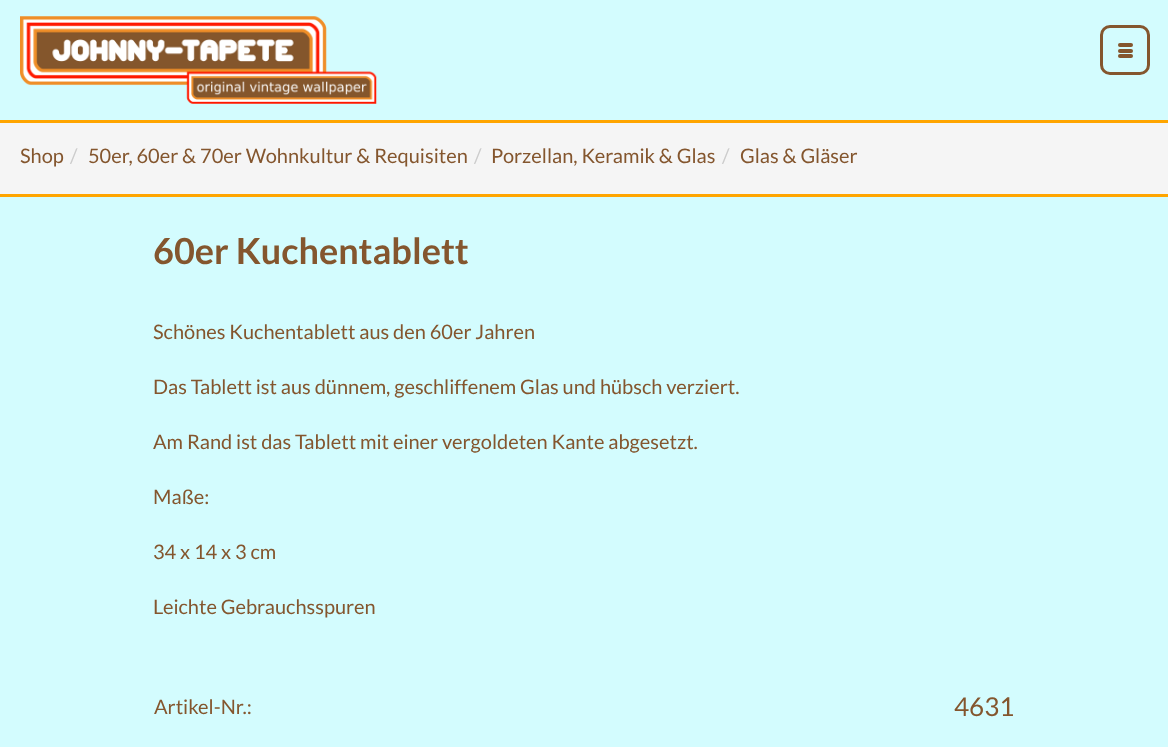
<svg xmlns="http://www.w3.org/2000/svg" xmlns:xlink="http://www.w3.org/1999/xlink" width="1168" height="747" viewBox="0 0 1168 747">
<style>
.cls-1{font:20px Lato;fill:#84562e}
.cls-2{font:20px Lato;fill:#cccccc}
.cls-3{font:bold 36px Lato;fill:#84562e}
.cls-4{font:26px Lato;fill:#84562e}
</style>
<rect width="100%" height="100%" fill="#d3fcfe"/>
<image xlink:href="image0.png" x="20" y="16" width="357" height="88"/>
<rect fill="none" stroke="#84562e" stroke-width="3" x="1101.5" y="26.5" width="47" height="47" rx="8.5"/>
<rect fill="#84562e" x="1118" y="43" width="15" height="4" rx="2"/>
<rect fill="#84562e" x="1118" y="49" width="15" height="4" rx="2"/>
<rect fill="#84562e" x="1118" y="54" width="15" height="4" rx="2"/>
<rect fill="#f5f5f5" x="0" y="123" width="1168" height="71"/>
<rect fill="#ffa500" x="0" y="120" width="1168" height="3"/>
<rect fill="#ffa500" x="0" y="194" width="1168" height="3"/>
<text class="cls-1" x="20" y="163">Shop</text>
<text class="cls-2" x="70" y="163">/</text>
<text class="cls-1" x="88" y="163">50er, 60er &amp; 70er Wohnkultur &amp; Requisiten</text>
<text class="cls-2" x="474" y="163">/</text>
<text class="cls-1" x="491" y="163">Porzellan, Keramik &amp; Glas</text>
<text class="cls-2" x="722" y="163">/</text>
<text class="cls-1" x="740" y="163">Glas &amp; Gläser</text>
<text class="cls-3" x="153" y="264">60er Kuchentablett</text>
<text class="cls-1" x="153" y="339">Schönes Kuchentablett aus den 60er Jahren</text>
<text class="cls-1" x="153" y="394">Das Tablett ist aus dünnem, geschliffenem Glas und hübsch verziert.</text>
<text class="cls-1" x="153" y="449">Am Rand ist das Tablett mit einer vergoldeten Kante abgesetzt.</text>
<text class="cls-1" x="153" y="504">Maße:</text>
<text class="cls-1" x="153" y="559">34 x 14 x 3 cm</text>
<text class="cls-1" x="153" y="614">Leichte Gebrauchsspuren</text>
<text class="cls-1" x="154" y="714">Artikel-Nr.:</text>
<text class="cls-4" x="954" y="716">4631</text>
</svg>
